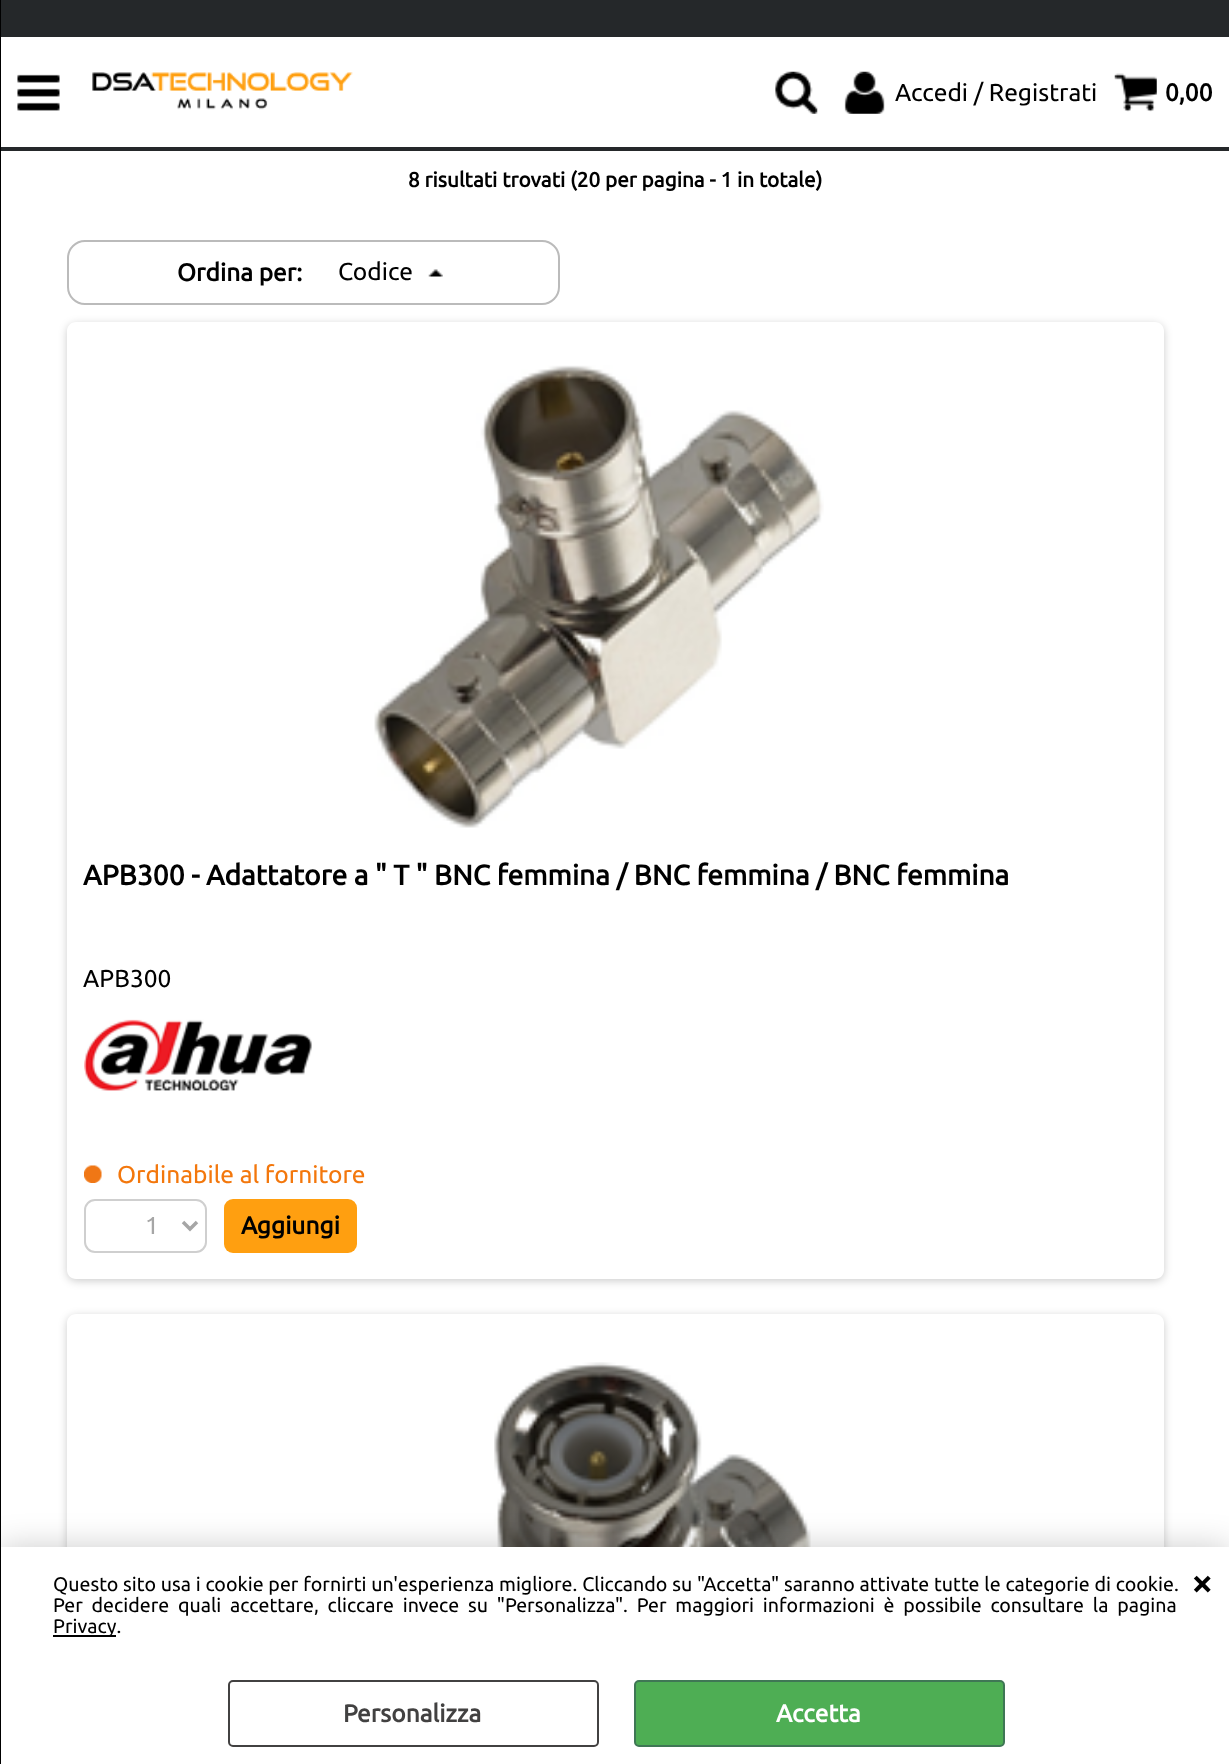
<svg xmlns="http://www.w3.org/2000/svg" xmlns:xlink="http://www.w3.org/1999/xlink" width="1229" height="1764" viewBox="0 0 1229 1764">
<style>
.cls-1{font:24.5px Ubuntu;fill:#000000}
.cls-2{font:bold 24.5px Ubuntu;fill:#000000}
.cls-3{font:bold 20.75px Ubuntu;fill:#000000}
.cls-4{font:bold 28.2px Ubuntu;fill:#000000}
.cls-5{font:24.5px Ubuntu;fill:#f3770c}
.cls-6{font:24.5px Ubuntu;fill:#a6a6a6}
.cls-7{font:19.6px Ubuntu;fill:#000000}
.cls-8{font:bold 38px Ubuntu;fill:#000000}
.cls-9{font:bold 24.5px Ubuntu;fill:#424141}
.cls-10{font:bold 24.5px Ubuntu;fill:#ffffff}
</style>
<defs>
<clipPath id="clip1"><path d="M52 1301H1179V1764H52ZM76 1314H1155C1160 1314 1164 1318 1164 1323V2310C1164 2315 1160 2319 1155 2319H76C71 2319 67 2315 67 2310V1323C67 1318 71 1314 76 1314Z" clip-rule="evenodd"/></clipPath>
<clipPath id="clip2"><path d="M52 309H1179V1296H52ZM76 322H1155C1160 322 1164 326 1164 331V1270C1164 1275 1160 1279 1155 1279H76C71 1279 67 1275 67 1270V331C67 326 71 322 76 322Z" clip-rule="evenodd"/></clipPath>
</defs>
<rect width="100%" height="100%" fill="#ffffff"/>
<rect fill="#25282a" x="0" y="147" width="1229" height="4"/>
<g clip-path="url(#clip1)">
<rect fill="#000000" fill-opacity="0.2" filter="blur(4.5px)" x="67" y="1316" width="1097" height="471" rx="9"/>
</g>
<image xlink:href="image9.png" x="388" y="1362" width="423" height="185"/>
<rect fill="#000000" fill-opacity="0.2" filter="blur(16px)" x="0" y="1547" width="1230" height="217"/>
<rect fill="#000000" x="0" y="0" width="1" height="1764"/>
<rect fill="#25282a" x="1" y="0" width="1228" height="37"/>
<image xlink:href="image0.png" x="17" y="74" width="43" height="37"/>
<image xlink:href="image1.png" x="92" y="72" width="261" height="38"/>
<image xlink:href="image2.png" x="775" y="71" width="43" height="43"/>
<image xlink:href="image3.png" x="844" y="71" width="41" height="43"/>
<image xlink:href="image4.png" x="1114" y="73" width="43" height="39"/>
<rect fill="none" stroke="#bbbbbb" stroke-width="2" x="68" y="241" width="491" height="63" rx="17"/>
<image xlink:href="image5.png" x="428" y="269" width="15" height="8"/>
<g clip-path="url(#clip2)">
<rect fill="#000000" fill-opacity="0.2" filter="blur(4.5px)" x="67" y="324" width="1097" height="957" rx="9"/>
</g>
<image xlink:href="image6.png" x="374" y="365" width="450" height="463"/>
<image xlink:href="image7.png" x="84" y="1019" width="228" height="72"/>
<image xlink:href="image8.png" x="84" y="1165" width="18" height="18"/>
<rect fill="none" stroke="#cfcfcf" stroke-width="2" x="85" y="1200" width="121" height="52" rx="10"/>
<path fill="none" stroke="#a6a6a6" stroke-width="3.5" d="M183 1222L190 1229L197 1222"/>
<rect fill="#ff9f10" x="224" y="1199" width="133" height="54" rx="9"/>
<rect fill="#ffffff" x="1" y="1547" width="1228" height="217"/>
<rect fill="#000000" x="53" y="1635" width="63" height="2"/>
<rect fill="none" stroke="#424141" stroke-width="2" x="229" y="1681" width="369" height="65" rx="4"/>
<rect fill="#4eae54" stroke="#3f7755" stroke-width="2" x="635" y="1681" width="369" height="65" rx="4"/>
<text class="cls-1" x="895" y="101">Accedi / Registrati</text>
<text class="cls-2" x="1165" y="101">0,00</text>
<text class="cls-3" x="408" y="187">8 risultati trovati (20 per pagina - 1 in totale)</text>
<text class="cls-2" x="177" y="281">Ordina per:</text>
<text class="cls-1" x="338" y="280">Codice</text>
<text class="cls-4" x="83" y="885">APB300 - Adattatore a " T " BNC femmina / BNC femmina / BNC femmina</text>
<text class="cls-1" x="83" y="987">APB300</text>
<text class="cls-5" x="117" y="1183">Ordinabile al fornitore</text>
<text class="cls-6" x="145" y="1234">1</text>
<text class="cls-2" x="241" y="1234">Aggiungi</text>
<text class="cls-7"><tspan x="53" y="1591" word-spacing="0.25">Questo sito usa i cookie per fornirti un'esperienza migliore. Cliccando su "Accetta" saranno attivate tutte le categorie di cookie.</tspan><tspan x="53" y="1612" word-spacing="4.25">Per decidere quali accettare, cliccare invece su "Personalizza". Per maggiori informazioni è possibile consultare la pagina</tspan><tspan x="53" y="1633">Privacy.</tspan></text>
<text class="cls-8" x="1191" y="1596">×</text>
<text class="cls-9" x="343" y="1722">Personalizza</text>
<text class="cls-10" x="776" y="1722">Accetta</text>
</svg>
